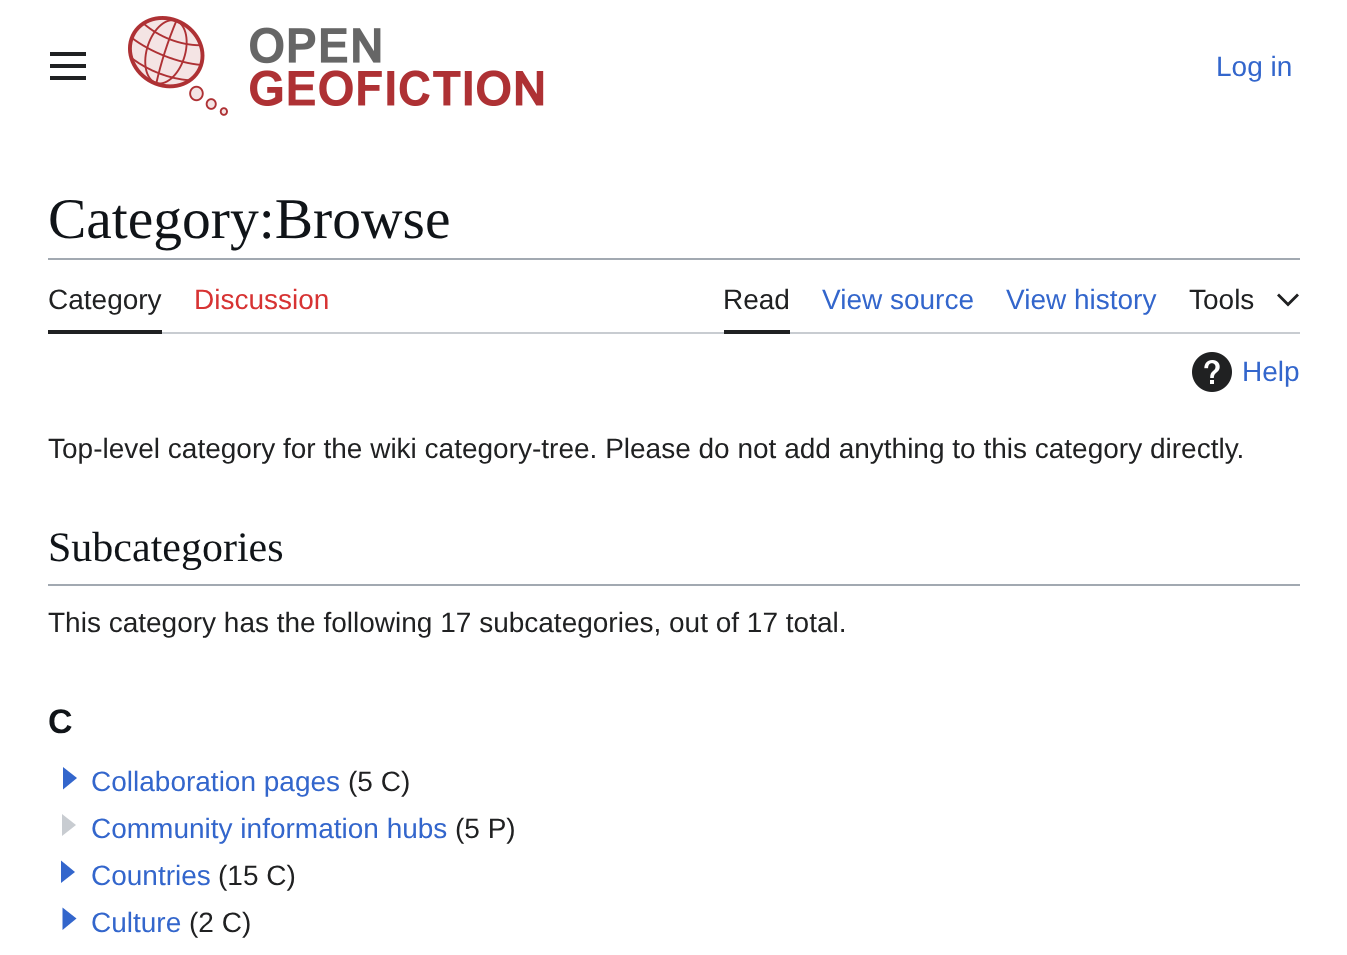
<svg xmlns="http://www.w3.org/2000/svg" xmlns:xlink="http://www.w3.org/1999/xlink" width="1347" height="955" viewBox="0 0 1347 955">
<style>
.cls-1{font:28px Liberation Sans;fill:#3366cc}
.cls-2{font:57.5px Liberation Serif;fill:#101418}
.cls-3{font:28px Liberation Sans;fill:#202122}
.cls-4{font:28px Liberation Sans;fill:#d73333}
.cls-5{font:42px Liberation Serif;fill:#101418}
.cls-6{font:bold 34px Liberation Sans;fill:#101418}
</style>
<rect width="100%" height="100%" fill="#ffffff"/>
<image xlink:href="image0.png" x="50" y="52" width="36" height="28"/>
<image xlink:href="image1.png" x="128" y="16" width="100" height="100"/>
<image xlink:href="image2.png" x="250" y="27" width="294" height="79"/>
<rect fill="#a2a9b1" x="48" y="258" width="1252" height="2"/>
<rect fill="#c8ccd1" x="162" y="332" width="1138" height="2"/>
<rect fill="#202122" x="48" y="330" width="114" height="4"/>
<rect fill="#202122" x="724" y="330" width="66" height="4"/>
<path fill="#202122" d="M1297 293.5L1288 302.5L1279 293.5L1277 295.5L1288 306.5L1299 295.5Z"/>
<image xlink:href="image3.png" x="1192" y="352" width="40" height="40"/>
<rect fill="#a2a9b1" x="48" y="584" width="1252" height="2"/>
<path fill="#3366cc" d="M77 778L63 789.5V767Z"/>
<path fill="#c8ccd1" d="M76 825L62 836V814Z"/>
<path fill="#3366cc" d="M75 872L61 883V860.5Z"/>
<path fill="#3366cc" d="M76.5 918.5L62.5 930V907.5Z"/>
<text class="cls-1" x="1216" y="76">Log in</text>
<text class="cls-2" x="48" y="238">Category:Browse</text>
<text class="cls-3" x="48" y="309">Category</text>
<text class="cls-4" x="194" y="309">Discussion</text>
<text class="cls-3" x="723" y="309">Read</text>
<text class="cls-1" x="822" y="309">View source</text>
<text class="cls-1" x="1006" y="309">View history</text>
<text class="cls-3" x="1189" y="309">Tools</text>
<text class="cls-1" x="1242" y="381">Help</text>
<text class="cls-3" x="48" y="458">Top-level category for the wiki category-tree. Please do not add anything to this category directly.</text>
<text class="cls-5" x="48" y="561">Subcategories</text>
<text class="cls-3" x="48" y="632">This category has the following 17 subcategories, out of 17 total.</text>
<text class="cls-6" x="48" y="733">C</text>
<text class="cls-1" x="91" y="791">Collaboration pages</text>
<text class="cls-3" x="348" y="791">(5 C)</text>
<text class="cls-1" x="91" y="838">Community information hubs</text>
<text class="cls-3" x="455" y="838">(5 P)</text>
<text class="cls-1" x="91" y="885">Countries</text>
<text class="cls-3" x="218" y="885">(15 C)</text>
<text class="cls-1" x="91" y="932">Culture</text>
<text class="cls-3" x="189" y="932">(2 C)</text>
</svg>
